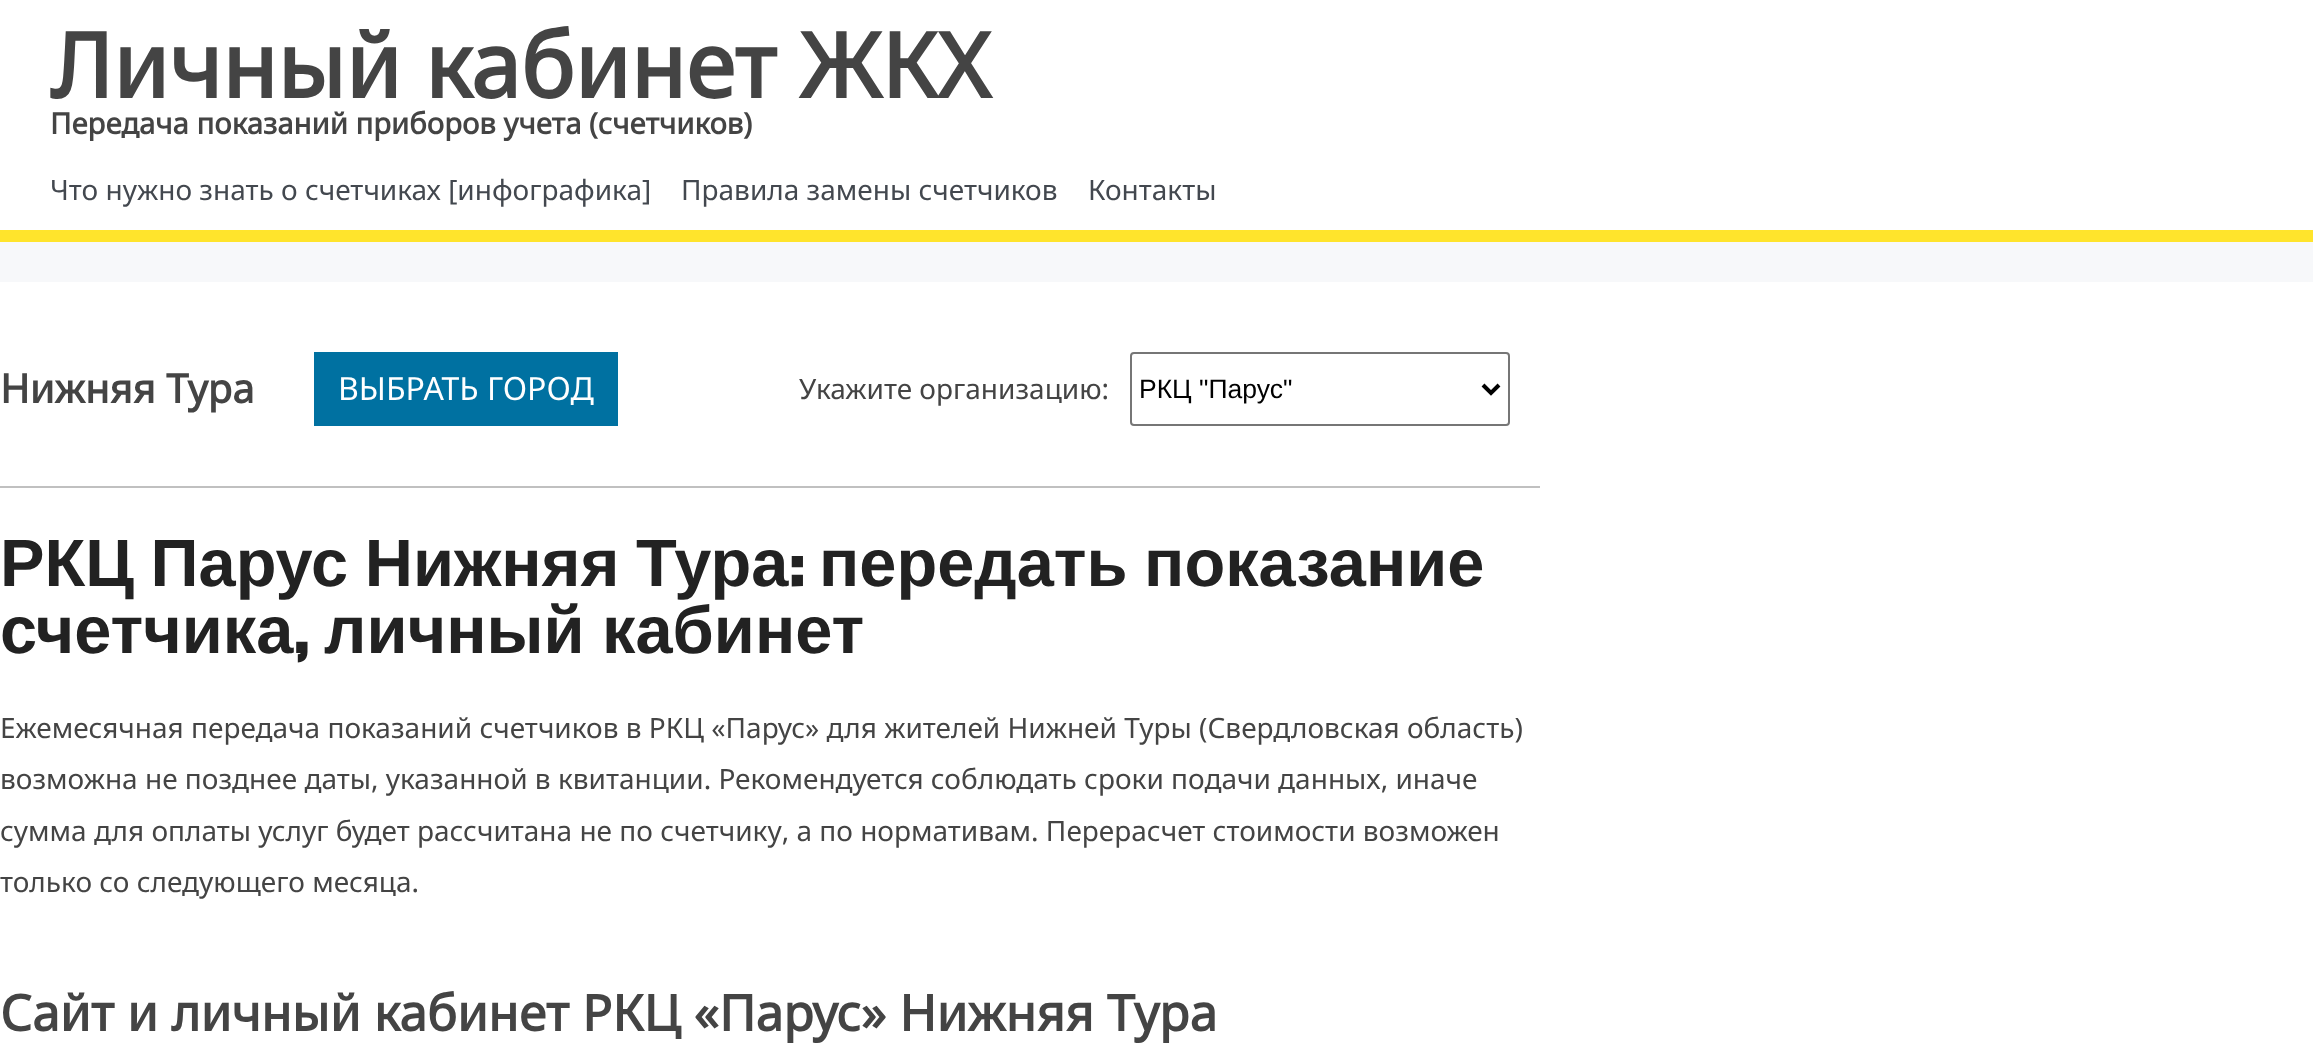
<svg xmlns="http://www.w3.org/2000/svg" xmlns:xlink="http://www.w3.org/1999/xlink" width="2313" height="1063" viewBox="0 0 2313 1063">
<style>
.cls-1{font:bold 90px Noto Sans;fill:#444444}
.cls-2{font:bold 29.3px Noto Sans;fill:#444444}
.cls-3{font:28px Noto Sans;fill:#43484f}
.cls-4{font:bold 40px Noto Sans;fill:#444444}
.cls-5{font:32px Noto Sans;fill:#ffffff}
.cls-6{font:28px Noto Sans;fill:#444444}
.cls-7{font:26.5px Liberation Sans;fill:#000000}
.cls-8{font:bold 66.75px Liberation Sans;fill:#222222}
.cls-9{font:bold 66.75px Francois One;fill:#222222}
.cls-10{font:bold 50px Noto Sans;fill:#444444}
</style>
<rect width="100%" height="100%" fill="#ffffff"/>
<rect fill="#ffe42c" x="0" y="230" width="2313" height="12"/>
<rect fill="#f7f8fa" x="0" y="242" width="2313" height="40"/>
<rect fill="#c0c0c0" x="0" y="486" width="1540" height="2"/>
<rect fill="#0071a1" x="314" y="352" width="304" height="74"/>
<rect fill="none" stroke="#767676" stroke-width="2" x="1131" y="353" width="378" height="72" rx="3"/>
<path fill="none" stroke="#000000" stroke-width="4" d="M1483 385L1491 393L1499 385"/>
<text class="cls-1" x="50" y="98">Личный кабинет ЖКХ</text>
<text class="cls-2" x="50" y="134">Передача показаний приборов учета (счетчиков)</text>
<text class="cls-3" x="50" y="200">Что нужно знать о счетчиках [инфографика]</text>
<text class="cls-3" x="681" y="200">Правила замены счетчиков</text>
<text class="cls-3" x="1088" y="200">Контакты</text>
<text class="cls-4" x="0" y="403">Нижняя Тура</text>
<text class="cls-5" x="338" y="400">ВЫБРАТЬ ГОРОД</text>
<text class="cls-6" x="799" y="399">Укажите организацию:</text>
<text class="cls-7" x="1139" y="398">РКЦ "Парус"</text>
<text class="cls-8" x="0" y="586" word-spacing="-2">РКЦ Парус Нижняя Тура</text>
<text class="cls-9" x="788" y="586">:</text>
<text class="cls-8" x="819" y="586" word-spacing="-2">передать показание</text>
<text class="cls-8" x="0" y="653">счетчика</text>
<text class="cls-9" x="293" y="653">,</text>
<text class="cls-8" x="324" y="653" word-spacing="-1">личный кабинет</text>
<text class="cls-6"><tspan x="0" y="738">Ежемесячная передача показаний счетчиков в РКЦ «Парус» для жителей Нижней Туры (Свердловская область)</tspan><tspan x="0" y="789">возможна не позднее даты, указанной в квитанции. Рекомендуется соблюдать сроки подачи данных, иначе</tspan><tspan x="0" y="841">сумма для оплаты услуг будет рассчитана не по счетчику, а по нормативам. Перерасчет стоимости возможен</tspan><tspan x="0" y="892">только со следующего месяца.</tspan></text>
<text class="cls-10" x="0" y="1031">Сайт и личный кабинет РКЦ «Парус» Нижняя Тура</text>
</svg>
